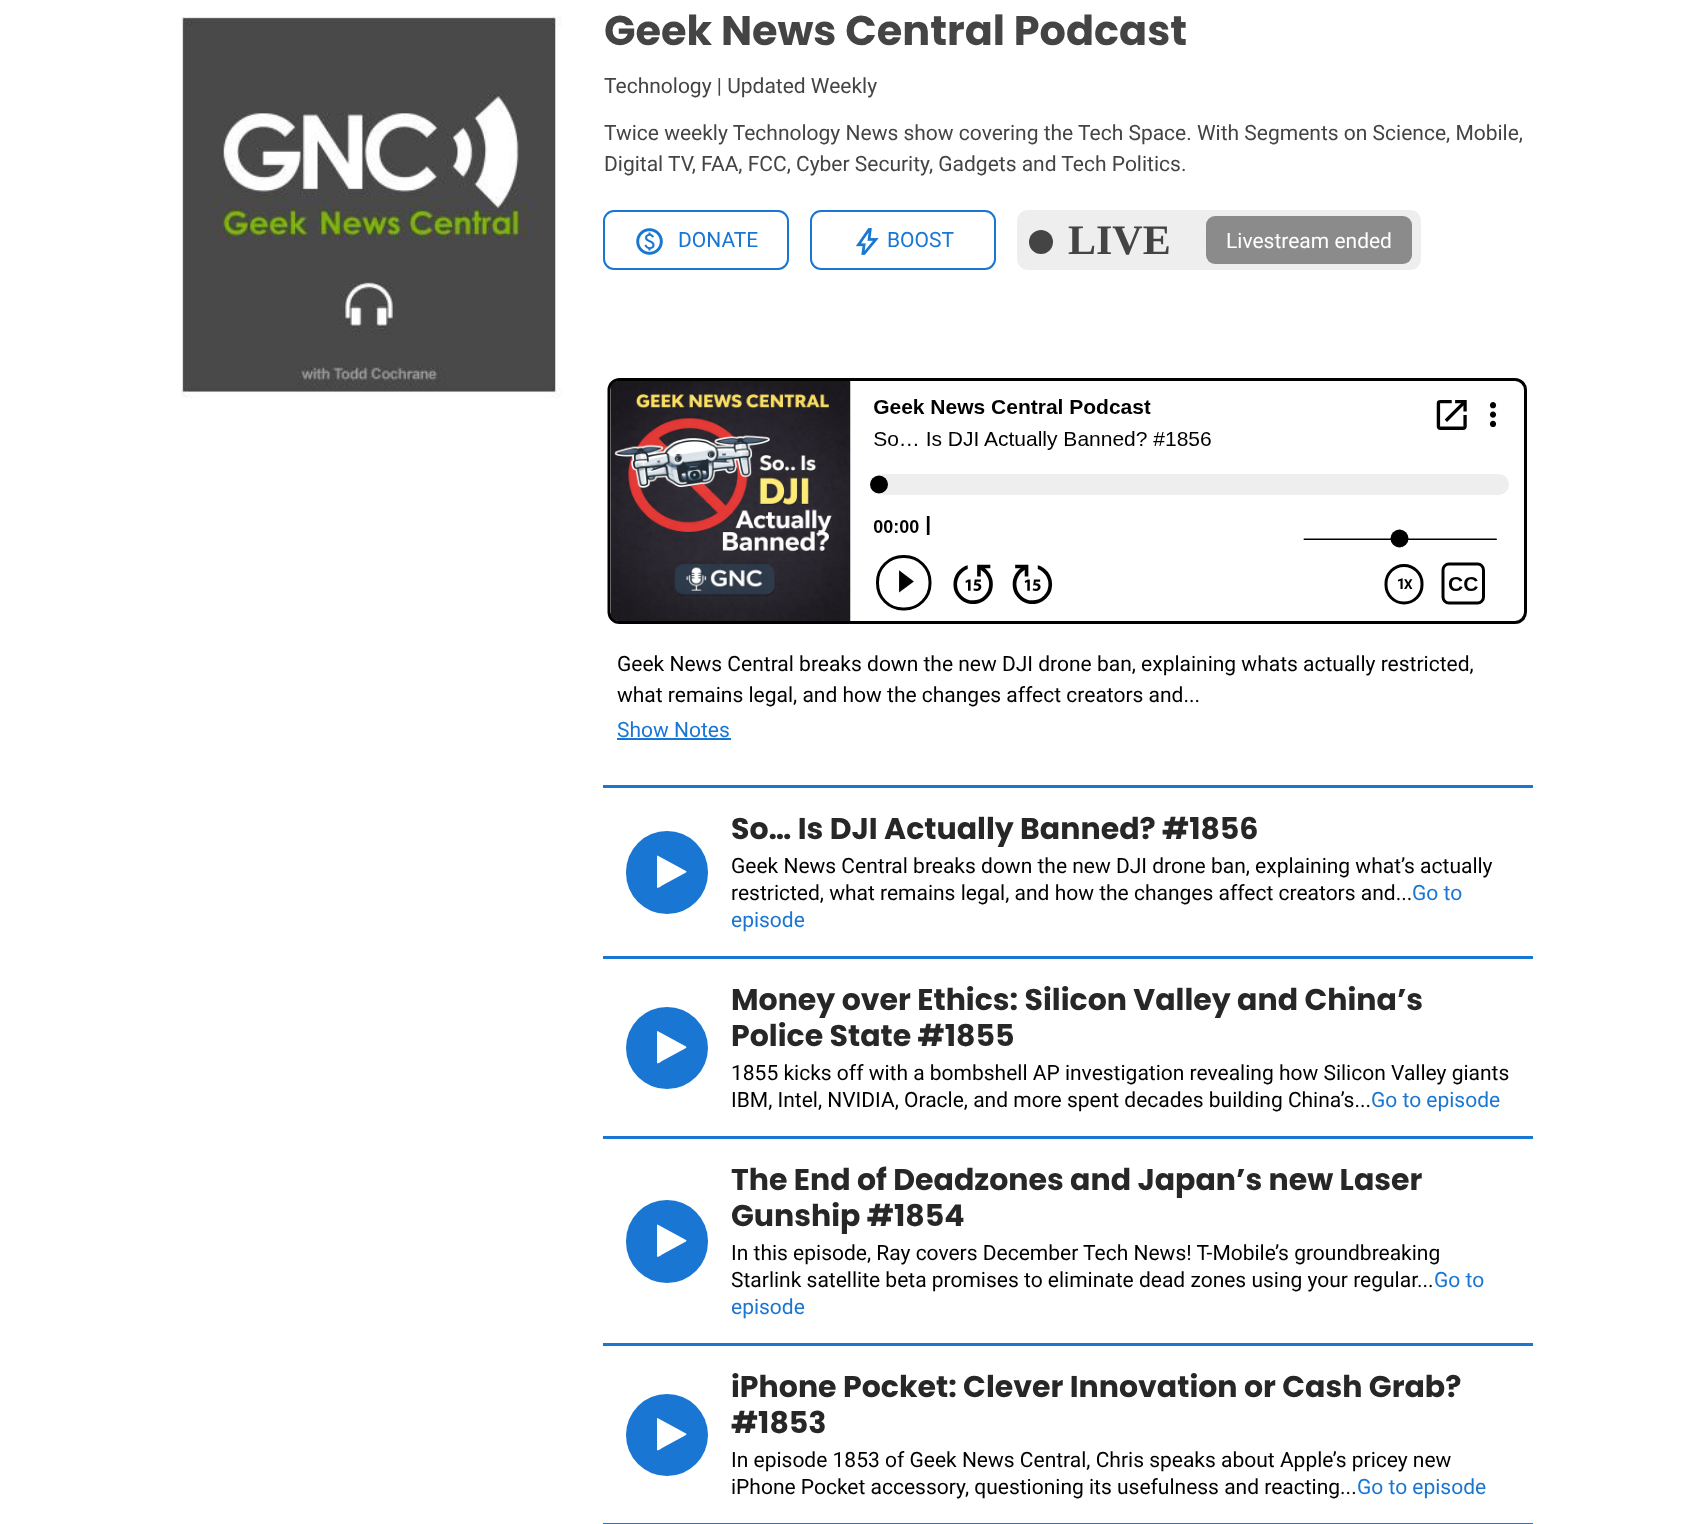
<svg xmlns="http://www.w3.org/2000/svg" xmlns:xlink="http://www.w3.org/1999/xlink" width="1702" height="1524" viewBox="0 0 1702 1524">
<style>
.cls-1{font:bold 41.4px Poppins;fill:#444444}
.cls-2{font:21px Roboto;fill:#444444}
.cls-3{font:21px Roboto;fill:#1976d2}
.cls-4{font:bold 42px Liberation Serif;fill:#444444}
.cls-5{font:21px Roboto;fill:#ffffff}
.cls-6{font:21px Roboto;fill:#000000}
.cls-7{font:bold 30px Poppins;fill:#272727}
</style>
<rect width="100%" height="100%" fill="#ffffff"/>
<image xlink:href="image0.png" x="181" y="16" width="381" height="382"/>
<rect fill="none" stroke="#1976d2" stroke-width="2" x="604" y="211" width="184" height="58" rx="10"/>
<image xlink:href="image1.png" x="636" y="228" width="27" height="27"/>
<rect fill="none" stroke="#1976d2" stroke-width="2" x="811" y="211" width="184" height="58" rx="10"/>
<image xlink:href="image2.png" x="856" y="228" width="23" height="27"/>
<rect fill="#eeeeee" x="1017" y="210" width="404" height="60" rx="11"/>
<circle fill="#444444" cx="1041" cy="242" r="12"/>
<rect fill="#8b8b8b" x="1206" y="216" width="206" height="48" rx="9"/>
<image xlink:href="image3.png" x="607" y="378" width="920" height="246"/>
<rect fill="#1976d2" x="617" y="738" width="114" height="2"/>
<rect fill="#1976d2" x="603" y="785" width="930" height="3"/>
<rect fill="#1976d2" x="603" y="956" width="930" height="3"/>
<rect fill="#1976d2" x="626" y="831" width="82" height="83" rx="41"/>
<path fill="#ffffff" d="M686 872.5L663 885C662 885.5 658 889 657 887.5V856L657.5 855.5L686 871L686.5 871.5Z"/>
<rect fill="#1976d2" x="603" y="1136" width="930" height="3"/>
<circle fill="#1976d2" cx="667" cy="1048" r="41"/>
<path fill="#ffffff" d="M686 1048L663 1060.5C662 1061 658 1064.5 657 1063V1031.5L657.5 1031L686 1046.5L686.5 1047Z"/>
<rect fill="#1976d2" x="603" y="1343" width="930" height="3"/>
<rect fill="#1976d2" x="626" y="1200" width="82" height="83" rx="41"/>
<path fill="#ffffff" d="M686 1241.5L663 1254C662 1254.5 658 1258 657 1256.5V1225L657.5 1224.5L686 1240L686.5 1240.5Z"/>
<rect fill="#1976d2" x="603" y="1523" width="930" height="1"/>
<circle fill="#1976d2" cx="667" cy="1435" r="41"/>
<path fill="#ffffff" d="M686 1435L663 1447.5C662 1448 658 1451.5 657 1450V1418.5L657.5 1418L686 1433.5L686.5 1434Z"/>
<text class="cls-1" x="604" y="45">Geek News Central Podcast</text>
<text class="cls-2" x="604" y="93">Technology | Updated Weekly</text>
<text class="cls-2"><tspan x="604" y="140">Twice weekly Technology News show covering the Tech Space. With Segments on Science, Mobile,</tspan><tspan x="604" y="171">Digital TV, FAA, FCC, Cyber Security, Gadgets and Tech Politics.</tspan></text>
<text class="cls-3" x="678" y="247">DONATE</text>
<text class="cls-3" x="887" y="247">BOOST</text>
<text class="cls-4" x="1068" y="254">LIVE</text>
<text class="cls-5" x="1226" y="248">Livestream ended</text>
<text class="cls-6"><tspan x="617" y="671">Geek News Central breaks down the new DJI drone ban, explaining whats actually restricted,</tspan><tspan x="617" y="702">what remains legal, and how the changes affect creators and...</tspan></text>
<text class="cls-3" x="617" y="737">Show Notes</text>
<text class="cls-7" x="731" y="839">So… Is DJI Actually Banned? #1856</text>
<text class="cls-6"><tspan x="731" y="873">Geek News Central breaks down the new DJI drone ban, explaining what’s actually</tspan><tspan x="731" y="900">restricted, what remains legal, and how the changes affect creators and...</tspan></text>
<text class="cls-3" x="1412" y="900">Go to</text>
<text class="cls-3" x="731" y="927">episode</text>
<text class="cls-7"><tspan x="731" y="1010">Money over Ethics: Silicon Valley and China’s</tspan><tspan x="731" y="1046">Police State #1855</tspan></text>
<text class="cls-6"><tspan x="731" y="1080">1855 kicks off with a bombshell AP investigation revealing how Silicon Valley giants</tspan><tspan x="731" y="1107">IBM, Intel, NVIDIA, Oracle, and more spent decades building China’s...</tspan></text>
<text class="cls-3" x="1371" y="1107">Go to episode</text>
<text class="cls-7"><tspan x="731" y="1190">The End of Deadzones and Japan’s new Laser</tspan><tspan x="731" y="1226">Gunship #1854</tspan></text>
<text class="cls-6"><tspan x="731" y="1260">In this episode, Ray covers December Tech News! T-Mobile’s groundbreaking</tspan><tspan x="731" y="1287">Starlink satellite beta promises to eliminate dead zones using your regular...</tspan></text>
<text class="cls-3" x="1434" y="1287">Go to</text>
<text class="cls-3" x="731" y="1314">episode</text>
<text class="cls-7"><tspan x="731" y="1397">iPhone Pocket: Clever Innovation or Cash Grab?</tspan><tspan x="731" y="1433">#1853</tspan></text>
<text class="cls-6"><tspan x="731" y="1467">In episode 1853 of Geek News Central, Chris speaks about Apple’s pricey new</tspan><tspan x="731" y="1494">iPhone Pocket accessory, questioning its usefulness and reacting...</tspan></text>
<text class="cls-3" x="1357" y="1494">Go to episode</text>
</svg>
